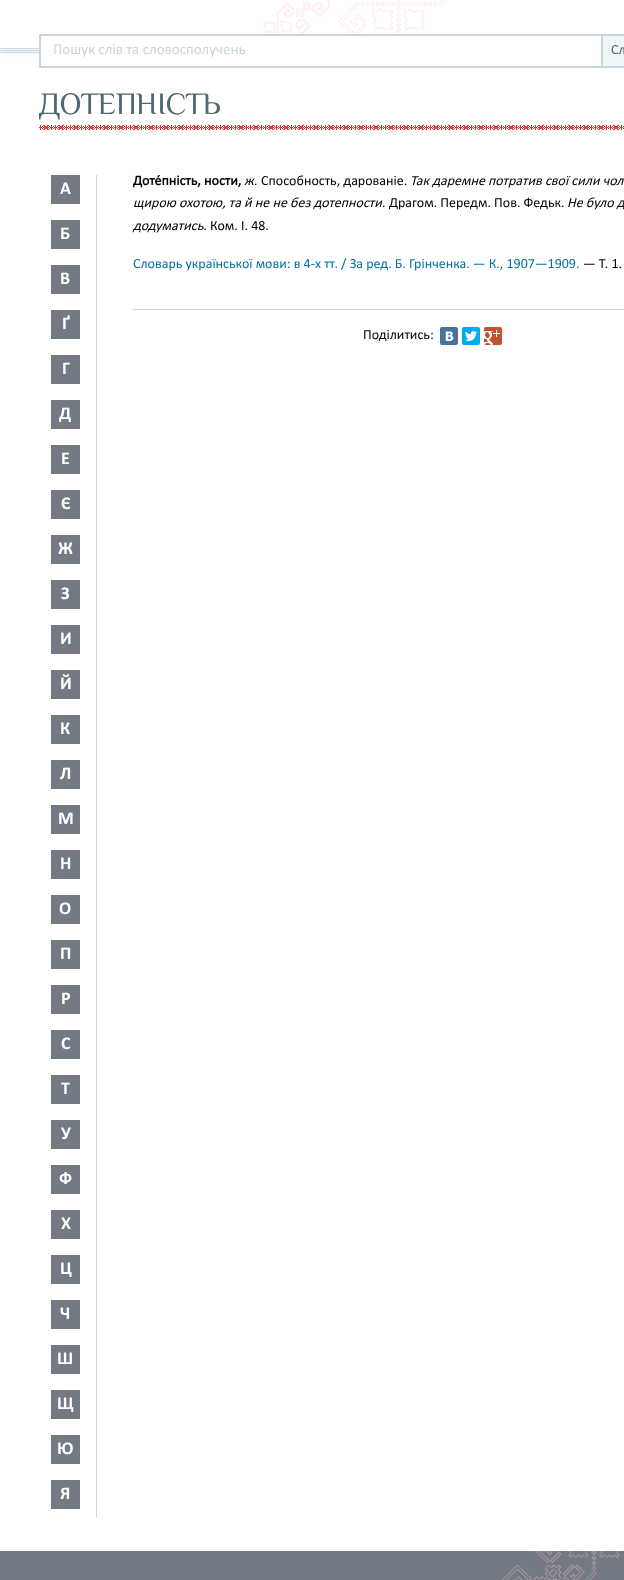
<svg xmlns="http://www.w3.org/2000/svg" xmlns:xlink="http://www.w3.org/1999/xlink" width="624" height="1580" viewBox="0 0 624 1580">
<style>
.cls-1{font:15px Calibri;fill:#c6d6db}
.cls-2{font:14px Calibri;fill:#526871}
.cls-3{font:31px Philosopher;fill:#526871}
.cls-4{font:bold 18px 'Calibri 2';fill:#ffffff}
.cls-5{font:bold 14px Calibri;fill:#000000}
.cls-6{font:italic 14px Calibri;fill:#000000}
.cls-7{font:14px Calibri;fill:#000000}
.cls-8{font:14px Calibri;fill:#0072a1}
</style>
<defs>
<clipPath id="clip1"><rect x="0" y="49" width="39" height="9"/></clipPath>
</defs>
<rect width="100%" height="100%" fill="#ffffff"/>
<g clip-path="url(#clip1)">
<rect fill="#96adbc" fill-opacity="0.35" filter="blur(5px)" x="0" y="-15" width="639" height="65"/>
</g>
<rect fill="#ced9e0" x="0" y="48" width="39" height="1"/>
<rect fill="#ced9e0" x="0" y="50" width="39" height="1"/>
<image xlink:href="image0.png" x="263" y="0" width="184" height="34"/>
<rect fill="#ffffff" x="41" y="49" width="560" height="8"/>
<rect fill="#c6d6db" x="39" y="34" width="562" height="2"/>
<rect fill="#c6d6db" x="39" y="66" width="562" height="2"/>
<rect fill="#c6d6db" x="39" y="34" width="2" height="34"/>
<rect fill="#eef6f8" stroke="#c6d6db" stroke-width="2" x="602" y="35" width="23" height="32"/>
<rect fill="#ced9e0" x="0" y="52" width="39" height="1"/>
<image xlink:href="image1.png" x="39" y="125" width="585" height="5"/>
<rect fill="#c6d6db" x="96" y="175" width="1" height="1342"/>
<rect fill="#737a84" x="51" y="175" width="29" height="29"/>
<rect fill="#737a84" x="51" y="220" width="29" height="29"/>
<rect fill="#737a84" x="51" y="265" width="29" height="29"/>
<rect fill="#737a84" x="51" y="310" width="29" height="29"/>
<rect fill="#737a84" x="51" y="355" width="29" height="29"/>
<rect fill="#737a84" x="51" y="400" width="29" height="29"/>
<rect fill="#737a84" x="51" y="445" width="29" height="29"/>
<rect fill="#737a84" x="51" y="490" width="29" height="29"/>
<rect fill="#737a84" x="51" y="535" width="29" height="29"/>
<rect fill="#737a84" x="51" y="580" width="29" height="29"/>
<rect fill="#737a84" x="51" y="625" width="29" height="29"/>
<rect fill="#737a84" x="51" y="670" width="29" height="29"/>
<rect fill="#737a84" x="51" y="715" width="29" height="29"/>
<rect fill="#737a84" x="51" y="760" width="29" height="29"/>
<rect fill="#737a84" x="51" y="805" width="29" height="29"/>
<rect fill="#737a84" x="51" y="850" width="29" height="29"/>
<rect fill="#737a84" x="51" y="895" width="29" height="29"/>
<rect fill="#737a84" x="51" y="940" width="29" height="29"/>
<rect fill="#737a84" x="51" y="985" width="29" height="29"/>
<rect fill="#737a84" x="51" y="1030" width="29" height="29"/>
<rect fill="#737a84" x="51" y="1075" width="29" height="29"/>
<rect fill="#737a84" x="51" y="1120" width="29" height="29"/>
<rect fill="#737a84" x="51" y="1165" width="29" height="29"/>
<rect fill="#737a84" x="51" y="1210" width="29" height="29"/>
<rect fill="#737a84" x="51" y="1255" width="29" height="29"/>
<rect fill="#737a84" x="51" y="1300" width="29" height="29"/>
<rect fill="#737a84" x="51" y="1345" width="29" height="29"/>
<rect fill="#737a84" x="51" y="1390" width="29" height="29"/>
<rect fill="#737a84" x="51" y="1435" width="29" height="29"/>
<rect fill="#737a84" x="51" y="1480" width="29" height="29"/>
<rect fill="#c6d6db" x="133" y="309" width="491" height="1"/>
<rect fill="#48729e" x="440" y="327" width="18" height="18" rx="2"/>
<image xlink:href="image2.png" x="445" y="331" width="9" height="10"/>
<rect fill="#00aced" x="462" y="327" width="18" height="18" rx="2"/>
<image xlink:href="image3.png" x="465" y="331" width="12" height="10"/>
<rect fill="#c25234" x="484" y="327" width="18" height="18" rx="2"/>
<image xlink:href="image4.png" x="484" y="330" width="16" height="15"/>
<rect fill="#737a84" x="0" y="1551" width="624" height="29"/>
<image xlink:href="image5.png" x="502" y="1551" width="118" height="29"/>
<text class="cls-1" x="53" y="54">Пошук слів та словосполучень</text>
<text class="cls-2" x="611" y="54">Сл</text>
<text class="cls-3" x="39" y="114">ДОТЕПНІСТЬ</text>
<text class="cls-4" x="60" y="194">А</text>
<text class="cls-4" x="60" y="239">Б</text>
<text class="cls-4" x="60" y="284">В</text>
<text class="cls-4" x="62" y="329">Ґ</text>
<text class="cls-4" x="62" y="374">Г</text>
<text class="cls-4" x="59" y="419">Д</text>
<text class="cls-4" x="61" y="464">Е</text>
<text class="cls-4" x="61" y="509">Є</text>
<text class="cls-4" x="58" y="554">Ж</text>
<text class="cls-4" x="61" y="599">З</text>
<text class="cls-4" x="60" y="644">И</text>
<text class="cls-4" x="60" y="689">Й</text>
<text class="cls-4" x="60" y="734">К</text>
<text class="cls-4" x="60" y="779">Л</text>
<text class="cls-4" x="58" y="824">М</text>
<text class="cls-4" x="60" y="869">Н</text>
<text class="cls-4" x="59" y="914">О</text>
<text class="cls-4" x="60" y="959">П</text>
<text class="cls-4" x="61" y="1004">Р</text>
<text class="cls-4" x="61" y="1049">С</text>
<text class="cls-4" x="61" y="1094">Т</text>
<text class="cls-4" x="61" y="1139">У</text>
<text class="cls-4" x="59" y="1184">Ф</text>
<text class="cls-4" x="61" y="1229">Х</text>
<text class="cls-4" x="60" y="1274">Ц</text>
<text class="cls-4" x="60" y="1319">Ч</text>
<text class="cls-4" x="57" y="1364">Ш</text>
<text class="cls-4" x="57" y="1409">Щ</text>
<text class="cls-4" x="57" y="1454">Ю</text>
<text class="cls-4" x="60" y="1499">Я</text>
<text class="cls-5" x="133" y="185">Доте́пність, ности,</text>
<text class="cls-6" x="244" y="185">ж.</text>
<text class="cls-7" x="261" y="185">Способность, дарованіе.</text>
<text class="cls-6" x="410" y="185">Так даремне потратив свої сили чол</text>
<text class="cls-6" x="133" y="207">щирою охотою, та й не не без дотепности.</text>
<text class="cls-7" x="389" y="207">Драгом. Передм. Пов. Федьк.</text>
<text class="cls-6" x="567" y="207">Не було д</text>
<text class="cls-6" x="133" y="230">додуматись.</text>
<text class="cls-7" x="210" y="230">Ком. І. 48.</text>
<text class="cls-8" x="133" y="268">Словарь української мови: в 4-х тт. / За ред. Б. Грінченка. — К., 1907—1909.</text>
<text class="cls-7" x="583" y="268">— Т. 1.</text>
<text class="cls-7" x="363" y="339">Поділитись:</text>
</svg>
